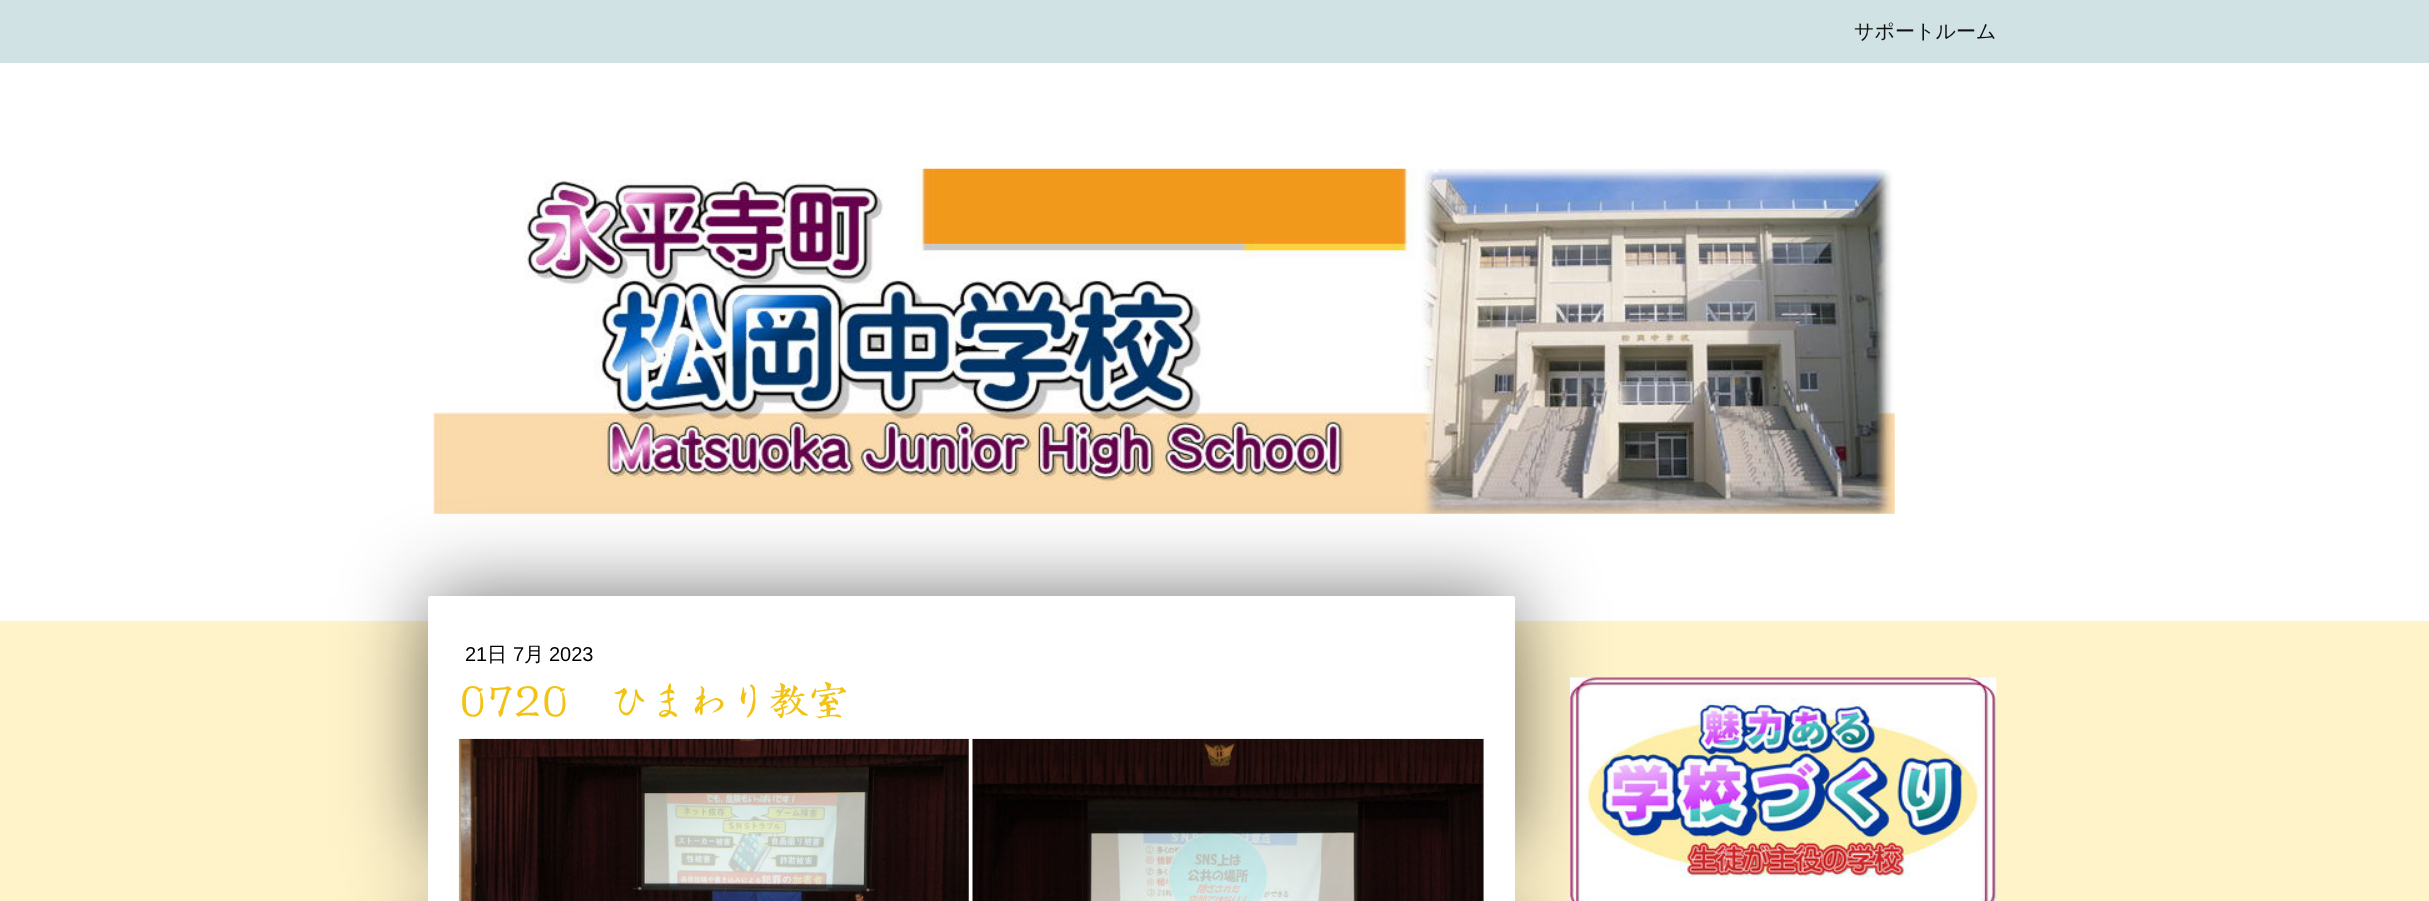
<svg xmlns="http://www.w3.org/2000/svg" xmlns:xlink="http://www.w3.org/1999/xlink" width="2429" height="901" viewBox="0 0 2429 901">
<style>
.cls-1{font:500 20px WenQuanYi Zen Hei;fill:#111111}
.cls-2{font:20px Liberation Sans;fill:#000000}
.cls-3{font:500 20px WenQuanYi Zen Hei;fill:#000000}
.cls-4{font:40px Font;fill:#f2c314}
</style>
<rect width="100%" height="100%" fill="#ffffff"/>
<rect fill="#d0e2e4" x="0" y="0" width="2429" height="63"/>
<image xlink:href="image0.png" x="433" y="168" width="1462" height="346"/>
<rect fill="#fff3ca" x="0" y="621" width="2429" height="280"/>
<rect fill="#111111" fill-opacity="0.6" filter="blur(42.5px)" x="428" y="596" width="1087" height="250"/>
<rect fill="#111111" fill-opacity="0.6" filter="blur(42.5px)" x="428" y="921" width="1087" height="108"/>
<rect fill="#ffffff" x="428" y="596" width="1087" height="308" rx="2.5"/>
<image xlink:href="image1.png" x="458" y="738" width="511" height="163"/>
<image xlink:href="image2.png" x="972" y="738" width="512" height="163"/>
<image xlink:href="image3.png" x="1570" y="677" width="427" height="224"/>
<text class="cls-1" x="1854" y="38">サポートルーム</text>
<text class="cls-2" x="465" y="661">21</text>
<text class="cls-3" x="487" y="661">日</text>
<text class="cls-2" x="513" y="661">7</text>
<text class="cls-3" x="524" y="661">月</text>
<text class="cls-2" x="549" y="661">2023</text>
<text class="cls-4" x="459" y="716">0720　ひまわり教室</text>
</svg>
